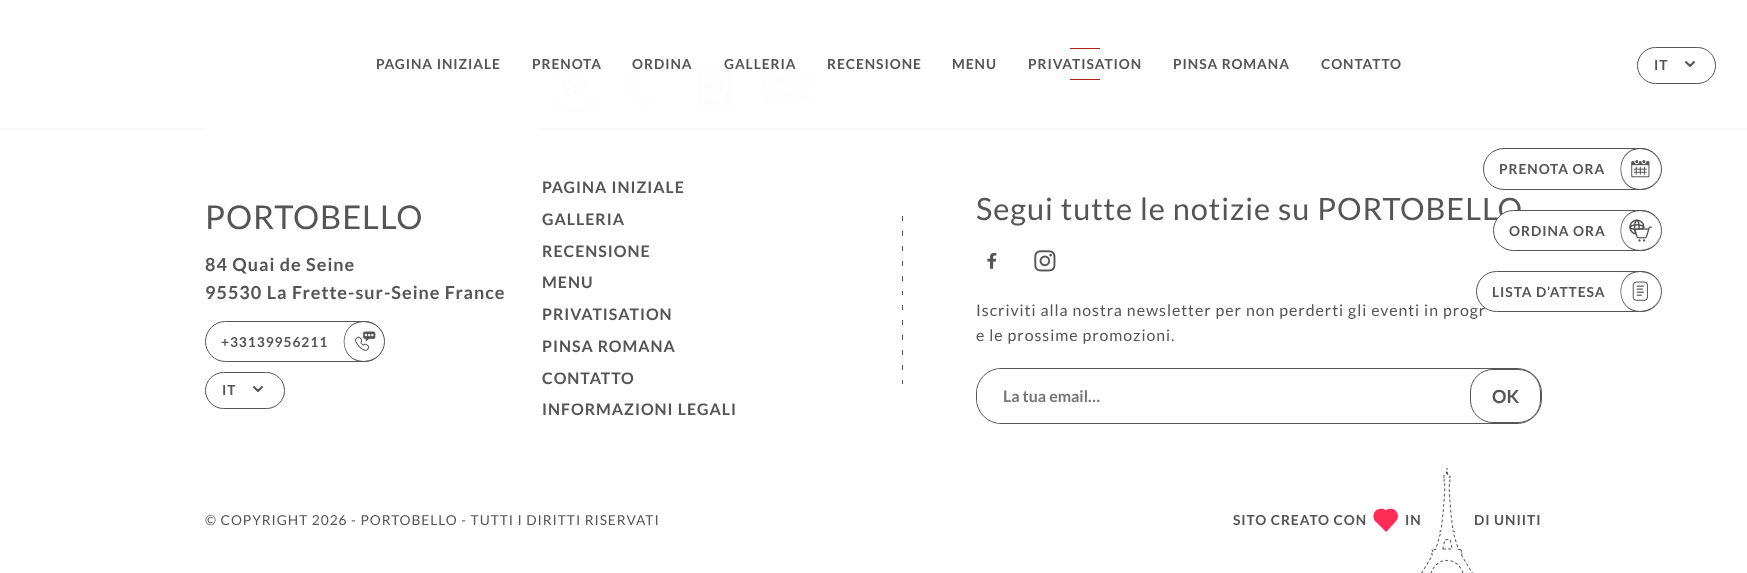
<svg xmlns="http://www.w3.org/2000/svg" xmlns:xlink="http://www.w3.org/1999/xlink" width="1747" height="573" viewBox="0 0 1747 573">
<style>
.cls-1{font:bold 13.75px Lato;letter-spacing:0.95px;fill:#555555}
.cls-2{font:32.75px Lato;letter-spacing:0.95px;fill:#555555}
.cls-3{font:bold 18px Lato;letter-spacing:1px;fill:#555555}
.cls-4{font:bold 15.9px Lato;letter-spacing:1px;fill:#555555}
.cls-5{font:30.75px Lato;letter-spacing:0.95px;fill:#555555}
.cls-6{font:15.9px Lato;letter-spacing:0.95px;fill:#555555}
.cls-7{font:bold 15.9px Lato;fill:#757575}
.cls-8{font:bold 18px Lato;fill:#555555}
.cls-9{font:13.75px Lato;letter-spacing:0.95px;fill:#555555}
.cls-10{font:bold 13.75px Lato;letter-spacing:1px;fill:#555555}
</style>
<rect width="100%" height="100%" fill="#ffffff"/>
<rect fill="#ad2116" x="1070" y="48" width="30" height="1"/>
<rect fill="#ad2116" x="1070" y="79" width="30" height="1"/>
<rect fill="none" stroke="#555555" x="1637.5" y="47.5" width="78" height="36" rx="18"/>
<path fill="none" stroke="#555555" stroke-width="2" stroke-linecap="round" stroke-linejoin="round" d="M1686 62L1690 66L1694 62"/>
<rect fill="#f8f8f8" x="0" y="128" width="1747" height="2"/>
<image xlink:href="image0.png" x="550" y="64" width="50" height="49"/>
<image xlink:href="image1.png" x="630" y="66" width="32" height="40"/>
<image xlink:href="image2.png" x="697" y="69" width="37" height="38"/>
<image xlink:href="image3.png" x="762" y="72" width="51" height="31"/>
<rect fill="#ffffff" x="205" y="128" width="334" height="2"/>
<rect fill="none" stroke="#555555" x="205.5" y="321.5" width="179" height="40" rx="20"/>
<path fill="#555555" fill-rule="evenodd" d="M364 321C390 321 390 362 364 362C337 362 337 321 364 321ZM364 322C390 322 390 361 364 361C338 361 338 322 364 322Z"/>
<image xlink:href="image4.png" x="355" y="331" width="21" height="20"/>
<rect fill="none" stroke="#555555" x="205.5" y="372.5" width="79" height="36" rx="18"/>
<path fill="none" stroke="#555555" stroke-width="2" stroke-linecap="round" stroke-linejoin="round" d="M254 387L258 391L262 387"/>
<rect fill="#555555" x="902" y="216" width="1" height="5"/>
<rect fill="#555555" x="902" y="231" width="1" height="5"/>
<rect fill="#555555" x="902" y="246" width="1" height="5"/>
<rect fill="#555555" x="902" y="261" width="1" height="5"/>
<rect fill="#555555" x="902" y="276" width="1" height="5"/>
<rect fill="#555555" x="902" y="291" width="1" height="4"/>
<rect fill="#555555" x="902" y="305" width="1" height="5"/>
<rect fill="#555555" x="902" y="320" width="1" height="5"/>
<rect fill="#555555" x="902" y="335" width="1" height="5"/>
<rect fill="#555555" x="902" y="350" width="1" height="5"/>
<rect fill="#555555" x="902" y="365" width="1" height="5"/>
<rect fill="#555555" x="902" y="380" width="1" height="4"/>
<image xlink:href="image5.png" x="987" y="252" width="10" height="17"/>
<image xlink:href="image6.png" x="1034" y="250" width="22" height="22"/>
<rect fill="none" stroke="#555555" x="976.5" y="368.5" width="565" height="55" rx="24.5"/>
<rect fill="#ffffff" x="977" y="369" width="493" height="54" rx="25"/>
<rect fill="none" stroke="#555555" x="1470.5" y="369.5" width="70" height="53" rx="22.5"/>
<image xlink:href="image7.png" x="1373" y="508" width="25" height="24"/>
<image xlink:href="image8.png" x="1421" y="467" width="53" height="106"/>
<rect fill="none" stroke="#555555" x="1483.5" y="148.5" width="178" height="41" rx="20.5"/>
<path fill="#555555" fill-rule="evenodd" d="M1640 148C1667 148 1667 190 1640 190C1614 190 1614 148 1640 148ZM1640 149C1667 149 1667 189 1640 189C1615 189 1615 149 1640 149Z"/>
<image xlink:href="image9.png" x="1631" y="160" width="19" height="18"/>
<text class="cls-1" x="376" y="69">PAGINA INIZIALE</text>
<text class="cls-1" x="532" y="69">PRENOTA</text>
<text class="cls-1" x="632" y="69">ORDINA</text>
<text class="cls-1" x="724" y="69">GALLERIA</text>
<text class="cls-1" x="827" y="69">RECENSIONE</text>
<text class="cls-1" x="952" y="69">MENU</text>
<text class="cls-1" x="1028" y="69">PRIVATISATION</text>
<text class="cls-1" x="1173" y="69">PINSA ROMANA</text>
<text class="cls-1" x="1321" y="69">CONTATTO</text>
<text class="cls-1" x="1654" y="70">IT</text>
<text class="cls-2" x="205" y="229">PORTOBELLO</text>
<text class="cls-3"><tspan x="205" y="271">84 Quai de Seine</tspan><tspan x="205" y="299">95530 La Frette-sur-Seine France</tspan></text>
<text class="cls-1" x="221" y="347">+33139956211</text>
<text class="cls-1" x="222" y="395">IT</text>
<text class="cls-4" x="542" y="193">PAGINA INIZIALE</text>
<text class="cls-4" x="542" y="225">GALLERIA</text>
<text class="cls-4"><tspan x="542" y="257">RECENSIONE</tspan><tspan x="542" y="288">MENU</tspan></text>
<text class="cls-4" x="542" y="320">PRIVATISATION</text>
<text class="cls-4" x="542" y="352">PINSA ROMANA</text>
<text class="cls-4"><tspan x="542" y="384">CONTATTO</tspan><tspan x="542" y="415">INFORMAZIONI LEGALI</tspan></text>
<text class="cls-5" x="976" y="220">Segui tutte le notizie su PORTOBELLO</text>
<text class="cls-6"><tspan x="976" y="316">Iscriviti alla nostra newsletter per non perderti gli eventi in progr</tspan><tspan x="976" y="341">e le prossime promozioni.</tspan></text>
<text class="cls-7" x="1003" y="402">La tua email…</text>
<text class="cls-8" x="1492" y="403">OK</text>
<text class="cls-9" x="205" y="525">© COPYRIGHT 2026 - PORTOBELLO - TUTTI I DIRITTI RISERVATI</text>
<text class="cls-1" x="1233" y="525">SITO CREATO CON</text>
<text class="cls-1" x="1405" y="525">IN</text>
<text class="cls-1" x="1474" y="525">DI</text>
<text class="cls-10" x="1494" y="525">UNIITI</text>
<text class="cls-1" x="1499" y="174">PRENOTA ORA</text>
<rect fill="#ffffff" stroke="#555555" x="1493.5" y="210.5" width="168" height="40" rx="20"/>
<text class="cls-1" x="1509" y="236">ORDINA ORA</text>
<path fill="#555555" fill-rule="evenodd" d="M1640 210C1667 210 1667 251 1640 251C1614 251 1614 210 1640 210ZM1640 211C1667 211 1667 250 1640 250C1615 250 1615 211 1640 211Z"/>
<image xlink:href="image10.png" x="1629" y="219" width="23" height="23"/>
<rect fill="#ffffff" stroke="#555555" x="1476.5" y="271.5" width="185" height="40" rx="20"/>
<text class="cls-1" x="1492" y="297">LISTA D’ATTESA</text>
<path fill="#555555" fill-rule="evenodd" d="M1640 271C1667 271 1667 312 1640 312C1614 312 1614 271 1640 271ZM1640 272C1667 272 1667 311 1640 311C1615 311 1615 272 1640 272Z"/>
<image xlink:href="image11.png" x="1632" y="281" width="16" height="20"/>
</svg>
